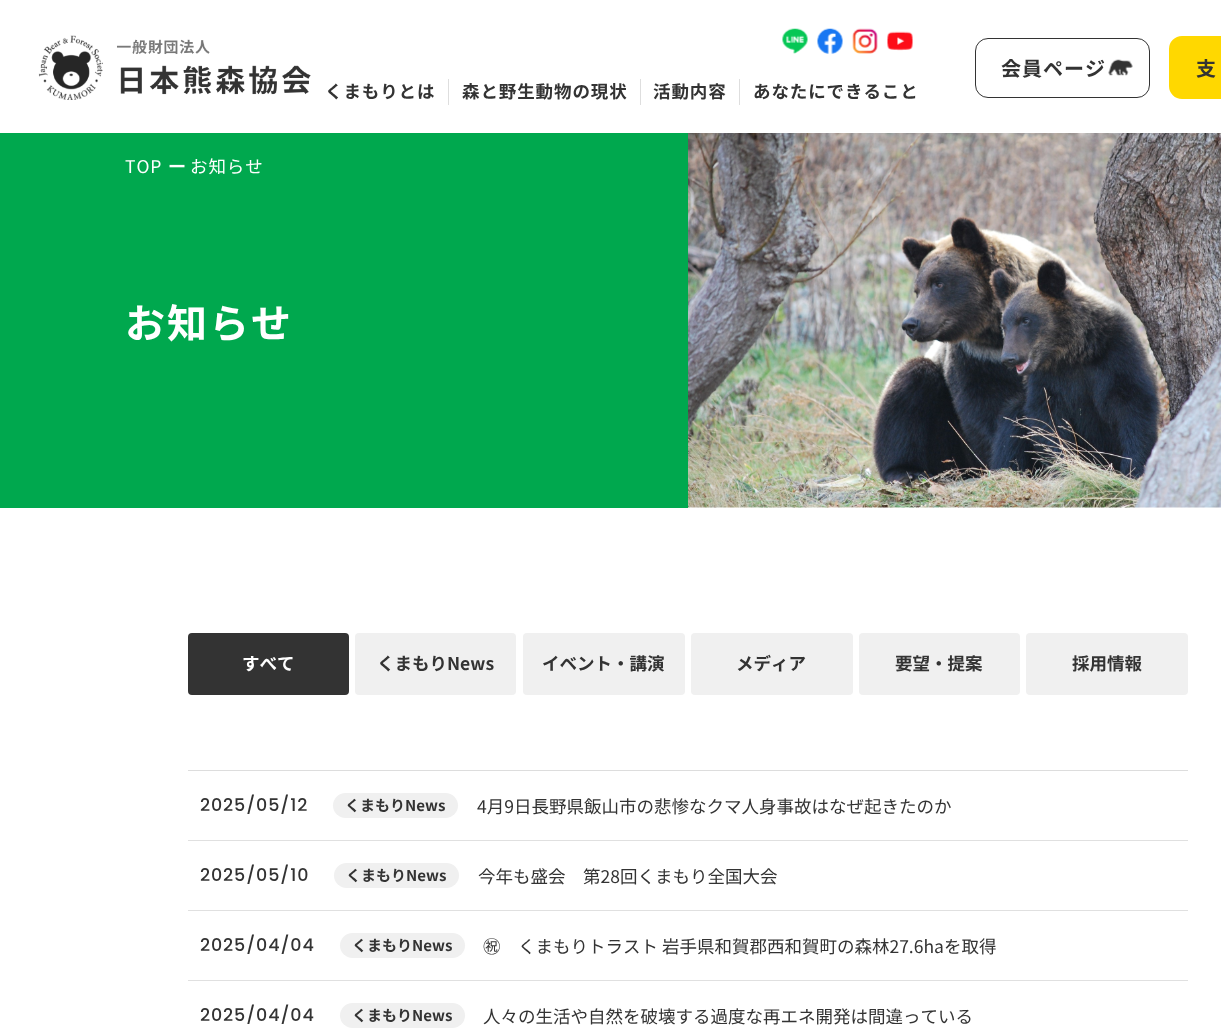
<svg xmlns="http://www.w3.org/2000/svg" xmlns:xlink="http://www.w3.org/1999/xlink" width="1221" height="1035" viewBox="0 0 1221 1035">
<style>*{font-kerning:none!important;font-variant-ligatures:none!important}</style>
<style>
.cls-1{font:bold 20px Noto Sans JP;letter-spacing:1px;fill:#333333}
.cls-2{font:bold 17.5px Noto Sans JP;letter-spacing:0.9px;fill:#333333}
.cls-3{font:17.5px Noto Sans JP;letter-spacing:0.9px;fill:#ffffff}
.cls-4{font:bold 17.5px WenQuanYi Zen Hei;letter-spacing:0.9px;fill:#ffffff}
.cls-5{font:bold 40px Noto Sans JP;letter-spacing:2px;fill:#ffffff}
.cls-6{font:bold 17.5px Noto Sans JP;fill:#ffffff}
.cls-7{font:bold 17.5px Noto Sans JP;fill:#333333}
.cls-8{font:500 17.5px Poppins;letter-spacing:0.9px;fill:#333333}
.cls-9{font:bold 15px Noto Sans JP;fill:#333333}
.cls-10{font:17.5px Noto Sans JP;fill:#333333}
</style>
<rect width="100%" height="100%" fill="#ffffff"/>
<image xlink:href="image0.png" x="38" y="35" width="273" height="65"/>
<rect fill="none" stroke="#333333" x="975.5" y="38.5" width="174" height="59" rx="12.5"/>
<image xlink:href="image1.png" x="1108" y="59" width="25" height="17"/>
<rect fill="#ffd800" stroke="#ffd800" stroke-width="3" x="1170.5" y="37.5" width="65" height="60" rx="11.5"/>
<image xlink:href="image2.png" x="782" y="28" width="26" height="26"/>
<image xlink:href="image3.png" x="817" y="28" width="26" height="26"/>
<image xlink:href="image4.png" x="852" y="28" width="26" height="26"/>
<image xlink:href="image5.png" x="887" y="31" width="26" height="20"/>
<rect fill="#dedede" x="448" y="79" width="1" height="26"/>
<rect fill="#dedede" x="640" y="79" width="1" height="26"/>
<rect fill="#dedede" x="739" y="79" width="1" height="26"/>
<rect fill="#00a84e" x="0" y="133" width="688" height="375"/>
<image xlink:href="image6.png" x="688" y="133" width="533" height="375"/>
<rect fill="#333333" x="188" y="633" width="161" height="62" rx="4"/>
<rect fill="#f0f0f0" x="355" y="633" width="161" height="62" rx="4"/>
<rect fill="#f0f0f0" x="523" y="633" width="162" height="62" rx="4"/>
<rect fill="#f0f0f0" x="691" y="633" width="162" height="62" rx="4"/>
<rect fill="#f0f0f0" x="859" y="633" width="161" height="62" rx="4"/>
<rect fill="#f0f0f0" x="1026" y="633" width="162" height="62" rx="4"/>
<rect fill="#dddddd" x="188" y="770" width="1000" height="1"/>
<rect fill="#e0e0e0" x="188" y="840" width="1000" height="1"/>
<rect fill="#f0f0f0" x="333" y="793" width="125" height="25" rx="12.5"/>
<rect fill="#e0e0e0" x="188" y="910" width="1000" height="1"/>
<rect fill="#f0f0f0" x="334" y="863" width="125" height="25" rx="12.5"/>
<rect fill="#e0e0e0" x="188" y="980" width="1000" height="1"/>
<rect fill="#f0f0f0" x="340" y="933" width="125" height="25" rx="12.5"/>
<rect fill="#f0f0f0" x="340" y="1003" width="125" height="25" rx="12.5"/>
<text class="cls-1" x="1001" y="76">会員ページ</text>
<text class="cls-1" x="1196" y="76">支</text>
<text class="cls-2" x="325" y="98">くまもりとは</text>
<text class="cls-2" x="462" y="98">森と野生動物の現状</text>
<text class="cls-2" x="653" y="98">活動内容</text>
<text class="cls-2" x="753" y="98">あなたにできること</text>
<text class="cls-3" x="125" y="173">TOP</text>
<text class="cls-4" x="168" y="173">ー</text>
<text class="cls-3" x="190" y="173">お知らせ</text>
<text class="cls-5" x="125" y="338">お知らせ</text>
<text class="cls-6" x="242" y="670">すべて</text>
<text class="cls-7" x="377" y="670">くまもりNews</text>
<text class="cls-7" x="542" y="670">イベント・講演</text>
<text class="cls-7" x="736" y="670">メディア</text>
<text class="cls-7" x="895" y="670">要望・提案</text>
<text class="cls-7" x="1072" y="670">採用情報</text>
<text class="cls-8" x="200" y="811">2025/05/12</text>
<text class="cls-9" x="345" y="811">くまもりNews</text>
<text class="cls-10" x="477" y="813">4月9日長野県飯山市の悲惨なクマ人身事故はなぜ起きたのか</text>
<text class="cls-8" x="200" y="881">2025/05/10</text>
<text class="cls-9" x="346" y="881">くまもりNews</text>
<text class="cls-10" x="478" y="883">今年も盛会　第28回くまもり全国大会</text>
<text class="cls-8" x="200" y="951">2025/04/04</text>
<text class="cls-9" x="352" y="951">くまもりNews</text>
<text class="cls-10" x="483" y="953">㊗　くまもりトラスト 岩手県和賀郡西和賀町の森林27.6haを取得</text>
<text class="cls-8" x="200" y="1021">2025/04/04</text>
<text class="cls-9" x="352" y="1021">くまもりNews</text>
<text class="cls-10" x="483" y="1023">人々の生活や自然を破壊する過度な再エネ開発は間違っている</text>
</svg>
